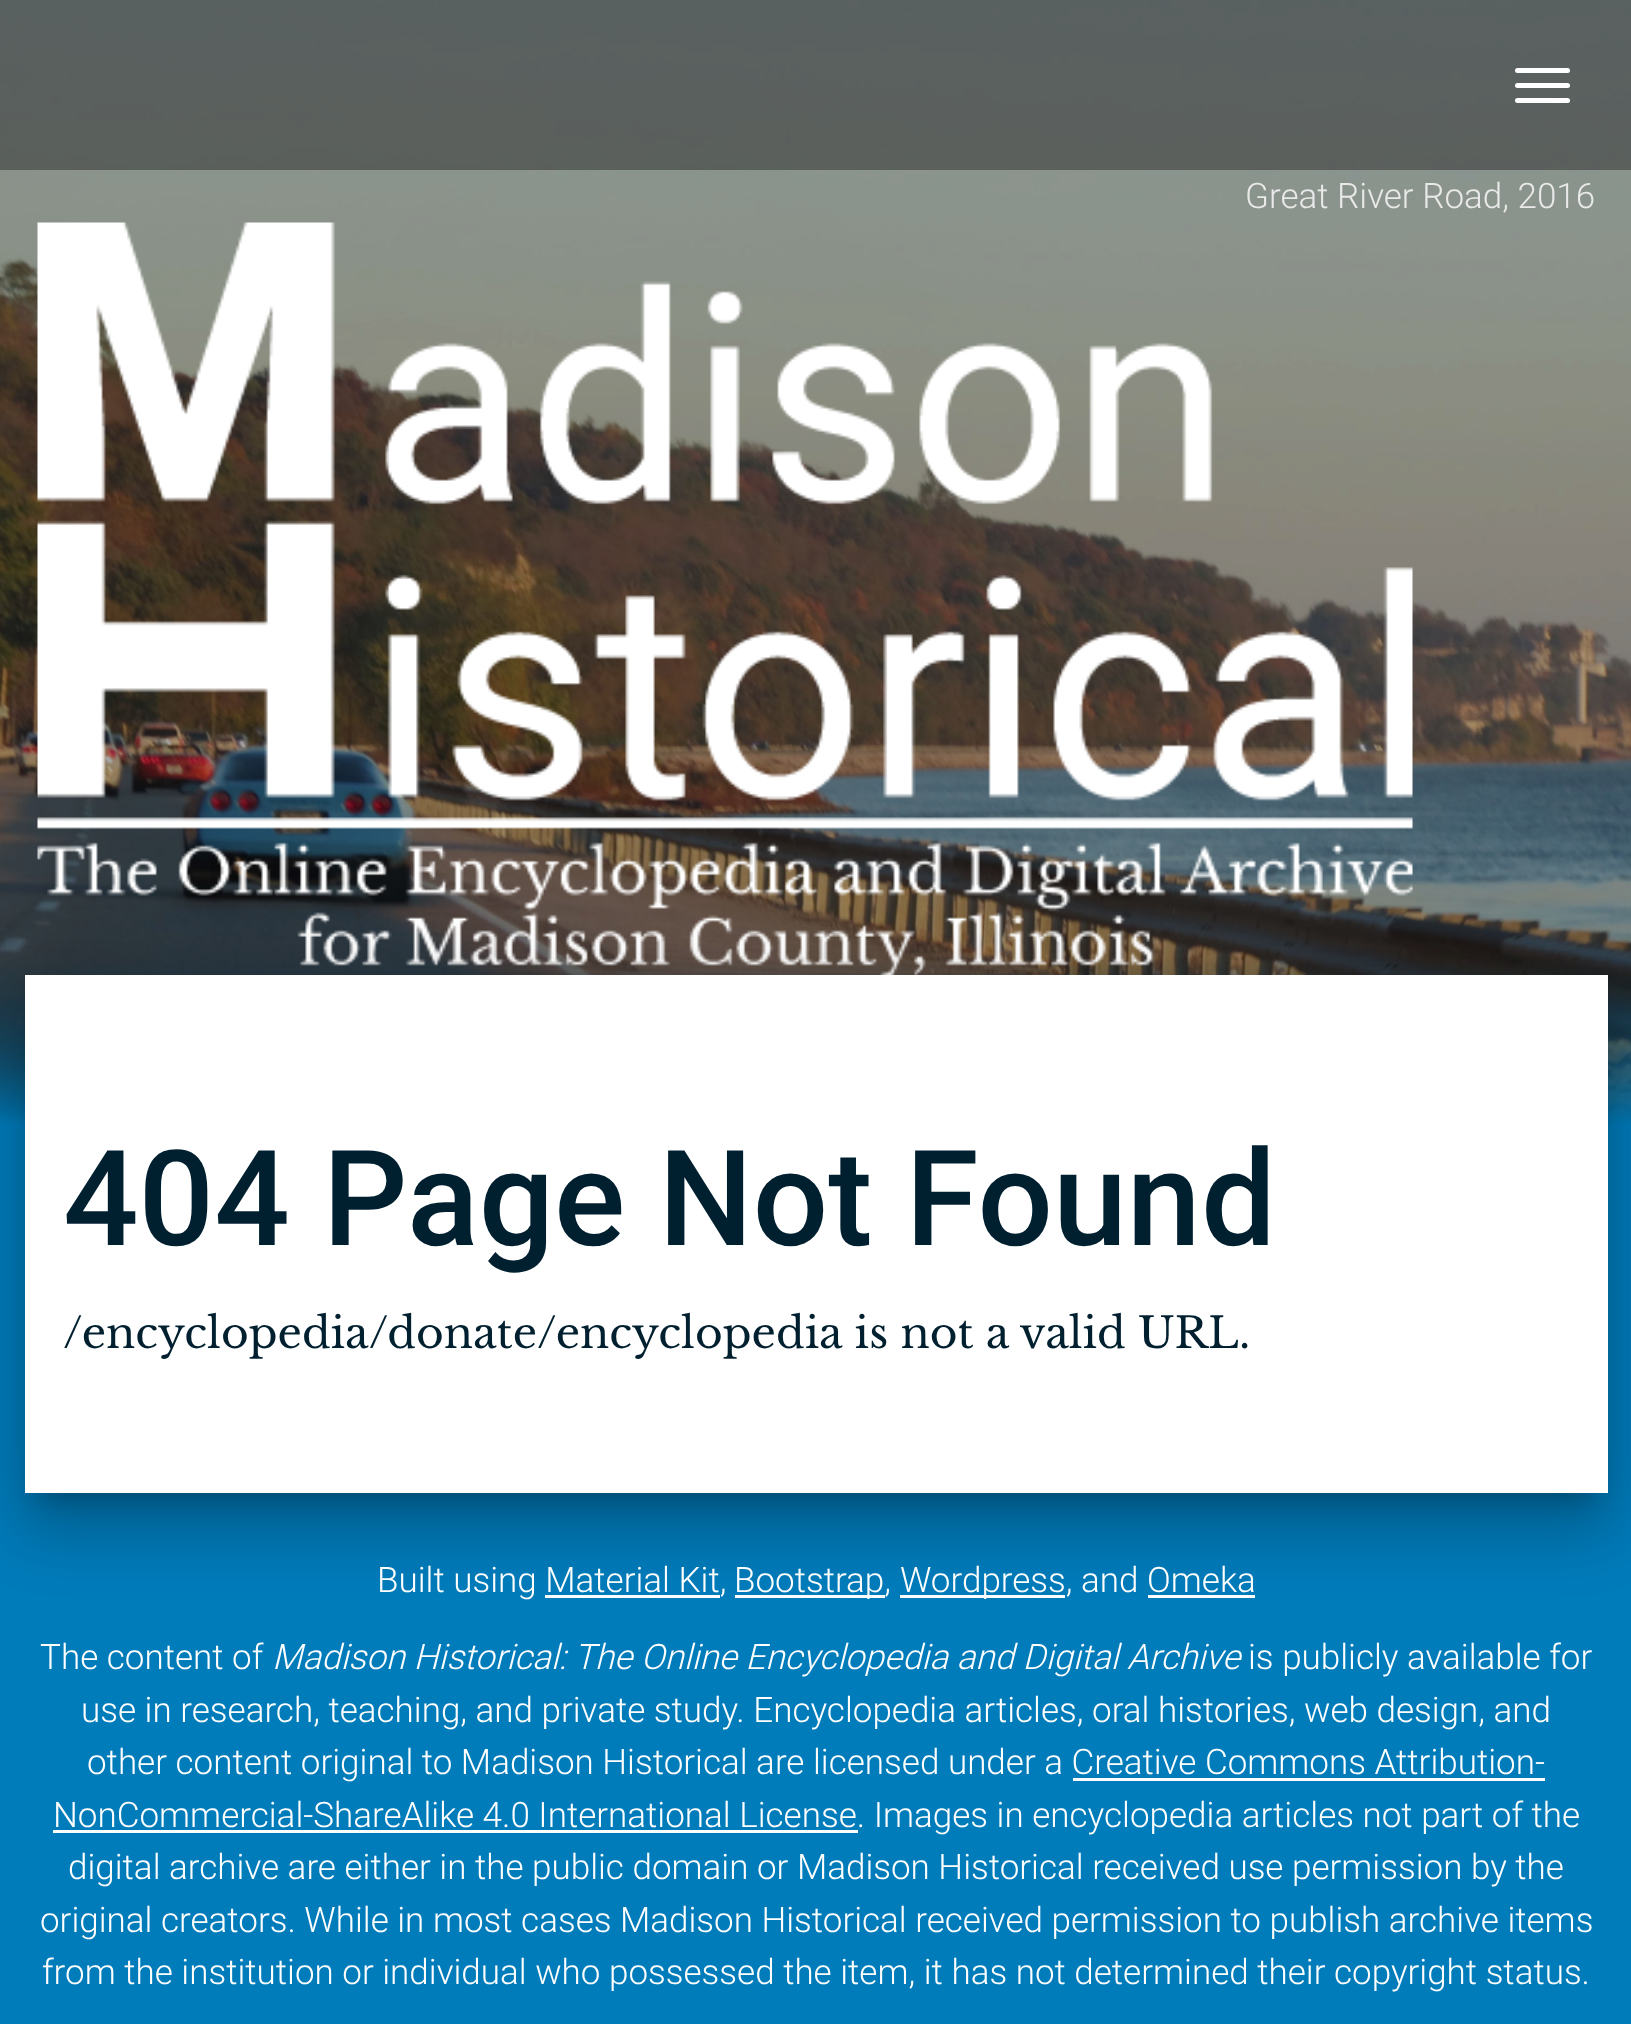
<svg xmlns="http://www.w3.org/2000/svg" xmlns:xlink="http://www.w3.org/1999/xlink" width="1631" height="2024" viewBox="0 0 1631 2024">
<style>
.cls-1{font:300 35px Roboto;fill:#e8e9e8}
.cls-2{font:500 133px Roboto;fill:#002030}
.cls-3{font:42.5px Libre Baskerville;fill:#002030}
.cls-4{font:300 35px Roboto;fill:#ffffff}
.cls-5{font:italic 300 35px Roboto;fill:#ffffff}
</style>
<rect width="100%" height="100%" fill="#007cbb"/>
<image xlink:href="image0.png" x="0" y="0" width="1631" height="1125"/>
<rect fill="#2c2c2c" fill-opacity="0.5" x="0" y="0" width="1631" height="170"/>
<rect fill="#ffffff" x="1515" y="68" width="55" height="5" rx="2.5"/>
<rect fill="#ffffff" x="1515" y="83" width="55" height="5" rx="2.5"/>
<rect fill="#ffffff" x="1515" y="98" width="55" height="5" rx="2.5"/>
<image xlink:href="image1.png" x="37" y="222" width="1376" height="753"/>
<rect fill="#000000" fill-opacity="0.2" filter="blur(12.5px)" x="38" y="1008" width="1557" height="492"/>
<rect fill="#ffffff" x="735" y="1595" width="150" height="3"/>
<rect fill="#ffffff" x="900" y="1595" width="165" height="3"/>
<rect fill="#ffffff" x="545" y="1595" width="175" height="3"/>
<rect fill="#ffffff" x="1148" y="1595" width="107" height="3"/>
<rect fill="#000000" fill-opacity="0.12" filter="blur(37.5px)" x="13" y="978" width="1607" height="542"/>
<rect fill="#000000" fill-opacity="0.14" filter="blur(30px)" x="20" y="1010" width="1593" height="528"/>
<rect fill="#ffffff" x="25" y="975" width="1583" height="518"/>
<rect fill="#ffffff" x="1073" y="1778" width="472" height="3"/>
<rect fill="#ffffff" x="53" y="1830" width="805" height="3"/>
<text class="cls-1" x="1245" y="208">Great River Road, 2016</text>
<text class="cls-2" x="63" y="1245">404 Page Not Found</text>
<text class="cls-3" x="63" y="1348">/encyclopedia/donate/encyclopedia is not a valid URL.</text>
<text class="cls-4" x="377" y="1592">Built using Material Kit,</text>
<text class="cls-4" x="734" y="1592">Bootstrap,</text>
<text class="cls-4" x="900" y="1592">Wordpress, and Omeka</text>
<text class="cls-4" x="40" y="1669">The content of</text>
<text class="cls-5" x="272" y="1669">Madison Historical: The Online Encyclopedia and Digital Archive</text>
<text class="cls-4" x="1248" y="1669">is publicly available for</text>
<text class="cls-4" x="81" y="1722">use in research, teaching, and private study. Encyclopedia articles, oral histories, web design, and</text>
<text class="cls-4" x="87" y="1774">other content original to Madison Historical are licensed under a Creative Commons Attribution-</text>
<text class="cls-4" x="53" y="1827">NonCommercial-ShareAlike 4.0 International License. Images in encyclopedia articles not part of the</text>
<text class="cls-4" x="68" y="1879">digital archive are either in the public domain or Madison Historical received use permission by the</text>
<text class="cls-4" x="40" y="1932">original creators. While in most cases Madison Historical received permission to publish archive items</text>
<text class="cls-4" x="42" y="1984">from the institution or individual who possessed the item, it has not determined their copyright status.</text>
</svg>
